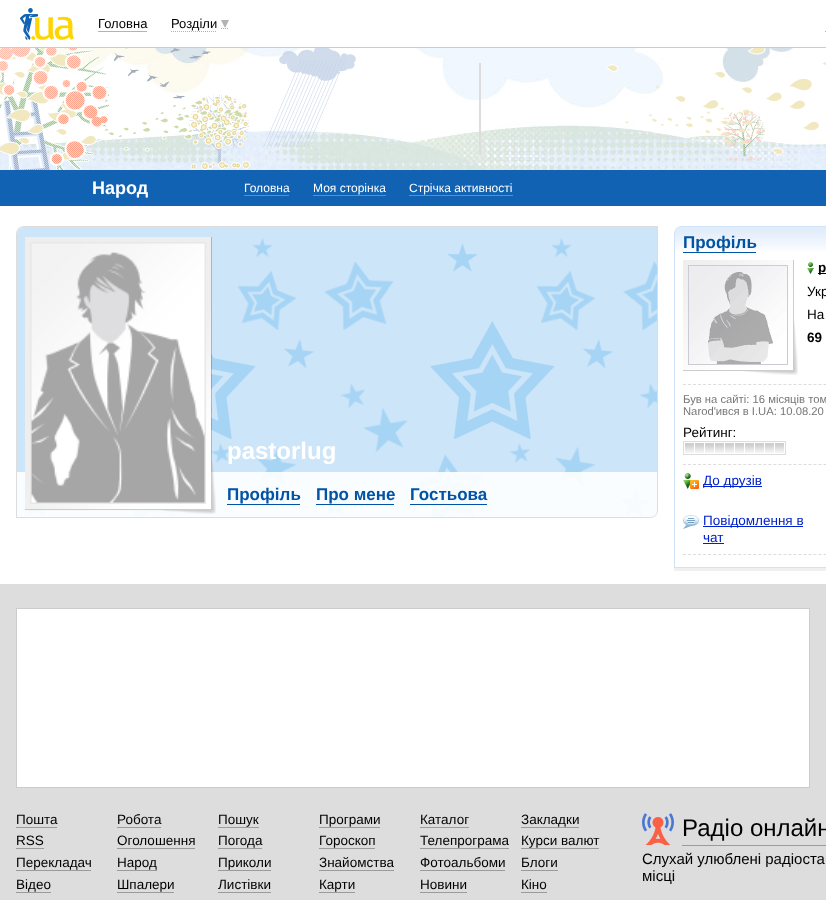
<svg xmlns="http://www.w3.org/2000/svg" xmlns:xlink="http://www.w3.org/1999/xlink" width="826" height="900" viewBox="0 0 826 900">
<style>
.cls-1{font:13px Liberation Sans;fill:#000000}
.cls-2{font:bold 18px Liberation Sans;fill:#ffffff}
.cls-3{font:12px Liberation Sans;fill:#ffffff}
.cls-4{font:bold 24px Liberation Sans;fill:#ffffff}
.cls-5{font:bold 17px Liberation Sans;fill:#0053a5}
.cls-6{font:bold 13.5px Liberation Sans;fill:#000000}
.cls-7{font:13.5px Liberation Sans;fill:#000000}
.cls-8{font:11.25px Liberation Sans;fill:#777777}
.cls-9{font:13.5px Liberation Sans;fill:#0022cc}
.cls-10{font:24px Liberation Sans;fill:#000000}
.cls-11{font:15px Liberation Sans;fill:#000000}
</style>
<rect width="100%" height="100%" fill="#ffffff"/>
<rect fill="#cccccc" x="0" y="47" width="826" height="1"/>
<image xlink:href="image0.png" x="20" y="8" width="54" height="32"/>
<rect fill="#b3b3b3" x="98" y="31" width="49" height="1"/>
<path fill="none" stroke="#b3b3b3" stroke-dasharray="1 1" d="M171 31.5H217M221 28.5H229"/>
<path fill="#b3b3b3" d="M221 20H229L225 28Z"/>
<rect fill="#b3b3b3" x="825" y="31" width="1" height="1"/>
<image xlink:href="image1.png" x="0" y="48" width="826" height="122"/>
<rect fill="#dddddd" x="479" y="63" width="2" height="92"/>
<rect fill="#1162b3" x="0" y="170" width="826" height="36"/>
<rect fill="#5891ca" x="244" y="195" width="45" height="1"/>
<rect fill="#5891ca" x="313" y="195" width="73" height="1"/>
<rect fill="#5891ca" x="409" y="195" width="104" height="1"/>
<rect fill="none" stroke="#dddddd" x="16.5" y="226.5" width="641" height="291"/>
<image xlink:href="image3.png" x="17" y="227" width="640" height="290"/>
<image xlink:href="image2.png" x="16" y="226" width="7" height="7"/>
<rect fill="#ffffff" fill-opacity="0.9" x="17" y="472" width="640" height="45"/>
<image xlink:href="image4.png" x="25" y="237" width="191" height="277"/>
<image xlink:href="image5.png" x="30" y="242" width="176" height="262"/>
<rect fill="#0053a5" x="227" y="504" width="73" height="1"/>
<rect fill="#0053a5" x="316" y="504" width="78" height="1"/>
<rect fill="#0053a5" x="410" y="504" width="77" height="1"/>
<image xlink:href="image6.png" x="651" y="511" width="7" height="7"/>
<rect fill="#f0f0f0" x="674" y="568" width="152" height="3"/>
<image xlink:href="image8.png" x="675" y="227" width="151" height="24"/>
<rect fill="none" stroke="#cee3f7" x="674.5" y="226.5" width="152" height="341"/>
<image xlink:href="image7.png" x="674" y="226" width="7" height="7"/>
<rect fill="#0053a5" x="683" y="252" width="73" height="1"/>
<image xlink:href="image9.png" x="683" y="260" width="115" height="115"/>
<image xlink:href="image10.png" x="688" y="265" width="100" height="100"/>
<image xlink:href="image11.png" x="807" y="262" width="7" height="12"/>
<rect fill="#000000" x="818" y="273" width="8" height="1"/>
<path fill="none" stroke="#dddddd" stroke-dasharray="3 2.02" d="M683 384.5H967"/>
<image xlink:href="image12.png" x="685" y="443" width="99" height="10"/>
<rect fill="none" stroke="#dddddd" x="683.5" y="441.5" width="102" height="13"/>
<path fill="none" stroke="#dddddd" stroke-dasharray="3 2.02" d="M683 464.5H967"/>
<image xlink:href="image13.png" x="683" y="473" width="16" height="16"/>
<rect fill="#0022cc" x="703" y="486" width="59" height="1"/>
<image xlink:href="image14.png" x="683" y="515" width="16" height="14"/>
<rect fill="#0022cc" x="703" y="526" width="100" height="1"/>
<rect fill="#0022cc" x="703" y="543" width="21" height="1"/>
<path fill="none" stroke="#dddddd" stroke-dasharray="3 2.02" d="M683 554.5H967"/>
<rect fill="#dddddd" x="0" y="584" width="826" height="316"/>
<rect fill="#ffffff" stroke="#cccccc" x="16.5" y="608.5" width="793" height="179"/>
<rect fill="#9b9b9b" x="16" y="827" width="41" height="1"/>
<rect fill="#9b9b9b" x="117" y="827" width="44" height="1"/>
<rect fill="#9b9b9b" x="218" y="827" width="41" height="1"/>
<rect fill="#9b9b9b" x="319" y="827" width="61" height="1"/>
<rect fill="#9b9b9b" x="420" y="827" width="49" height="1"/>
<rect fill="#9b9b9b" x="521" y="827" width="58" height="1"/>
<rect fill="#9b9b9b" x="16" y="848" width="28" height="1"/>
<rect fill="#9b9b9b" x="117" y="848" width="78" height="1"/>
<rect fill="#9b9b9b" x="218" y="848" width="44" height="1"/>
<rect fill="#9b9b9b" x="319" y="848" width="56" height="1"/>
<rect fill="#9b9b9b" x="420" y="848" width="89" height="1"/>
<rect fill="#9b9b9b" x="521" y="848" width="78" height="1"/>
<rect fill="#9b9b9b" x="16" y="870" width="75" height="1"/>
<rect fill="#9b9b9b" x="117" y="870" width="40" height="1"/>
<rect fill="#9b9b9b" x="218" y="870" width="53" height="1"/>
<rect fill="#9b9b9b" x="319" y="870" width="75" height="1"/>
<rect fill="#9b9b9b" x="420" y="870" width="85" height="1"/>
<rect fill="#9b9b9b" x="521" y="870" width="37" height="1"/>
<rect fill="#9b9b9b" x="16" y="892" width="35" height="1"/>
<rect fill="#9b9b9b" x="117" y="892" width="57" height="1"/>
<rect fill="#9b9b9b" x="218" y="892" width="53" height="1"/>
<rect fill="#9b9b9b" x="319" y="892" width="36" height="1"/>
<rect fill="#9b9b9b" x="420" y="892" width="47" height="1"/>
<rect fill="#9b9b9b" x="521" y="892" width="26" height="1"/>
<rect fill="#9b9b9b" x="682" y="845" width="144" height="1"/>
<image xlink:href="image15.png" x="642" y="813" width="32" height="32"/>
<text class="cls-1" x="98" y="28">Головна</text>
<text class="cls-1" x="171" y="28">Розділи</text>
<text class="cls-2" x="92" y="194">Народ</text>
<text class="cls-3" x="244" y="192">Головна</text>
<text class="cls-3" x="313" y="192">Моя сторінка</text>
<text class="cls-3" x="409" y="192">Стрічка активності</text>
<text class="cls-4" x="227" y="459">pastorlug</text>
<text class="cls-5" x="227" y="500">Профіль</text>
<text class="cls-5" x="316" y="500">Про мене</text>
<text class="cls-5" x="410" y="500">Гостьова</text>
<text class="cls-5" x="683" y="248">Профіль</text>
<text class="cls-6" x="818" y="272">p</text>
<text class="cls-7"><tspan x="807" y="296">Укр</tspan><tspan x="807" y="319">На</tspan></text>
<text class="cls-6" x="807" y="342">69</text>
<text class="cls-8"><tspan x="683" y="403">Був на сайті: 16 місяців том</tspan><tspan x="683" y="415">Narod'ився в I.UA: 10.08.20</tspan></text>
<text class="cls-7" x="683" y="437">Рейтинг:</text>
<text class="cls-9" x="703" y="485">До друзів</text>
<text class="cls-9"><tspan x="703" y="525">Повідомлення в</tspan><tspan x="703" y="542">чат</tspan></text>
<text class="cls-7" x="16" y="824">Пошта</text>
<text class="cls-7" x="117" y="824">Робота</text>
<text class="cls-7" x="218" y="824">Пошук</text>
<text class="cls-7" x="319" y="824">Програми</text>
<text class="cls-7" x="420" y="824">Каталог</text>
<text class="cls-7" x="521" y="824">Закладки</text>
<text class="cls-7" x="16" y="845">RSS</text>
<text class="cls-7" x="117" y="845">Оголошення</text>
<text class="cls-7" x="218" y="845">Погода</text>
<text class="cls-7" x="319" y="845">Гороскоп</text>
<text class="cls-7" x="420" y="845">Телепрограма</text>
<text class="cls-7" x="521" y="845">Курси валют</text>
<text class="cls-7" x="16" y="867">Перекладач</text>
<text class="cls-7" x="117" y="867">Народ</text>
<text class="cls-7" x="218" y="867">Приколи</text>
<text class="cls-7" x="319" y="867">Знайомства</text>
<text class="cls-7" x="420" y="867">Фотоальбоми</text>
<text class="cls-7" x="521" y="867">Блоги</text>
<text class="cls-7" x="16" y="889">Відео</text>
<text class="cls-7" x="117" y="889">Шпалери</text>
<text class="cls-7" x="218" y="889">Листівки</text>
<text class="cls-7" x="319" y="889">Карти</text>
<text class="cls-7" x="420" y="889">Новини</text>
<text class="cls-7" x="521" y="889">Кіно</text>
<text class="cls-10" x="682" y="836">Радіо онлайн</text>
<text class="cls-11"><tspan x="642" y="864">Слухай улюблені радіоста</tspan><tspan x="642" y="881">місці</tspan></text>
</svg>
